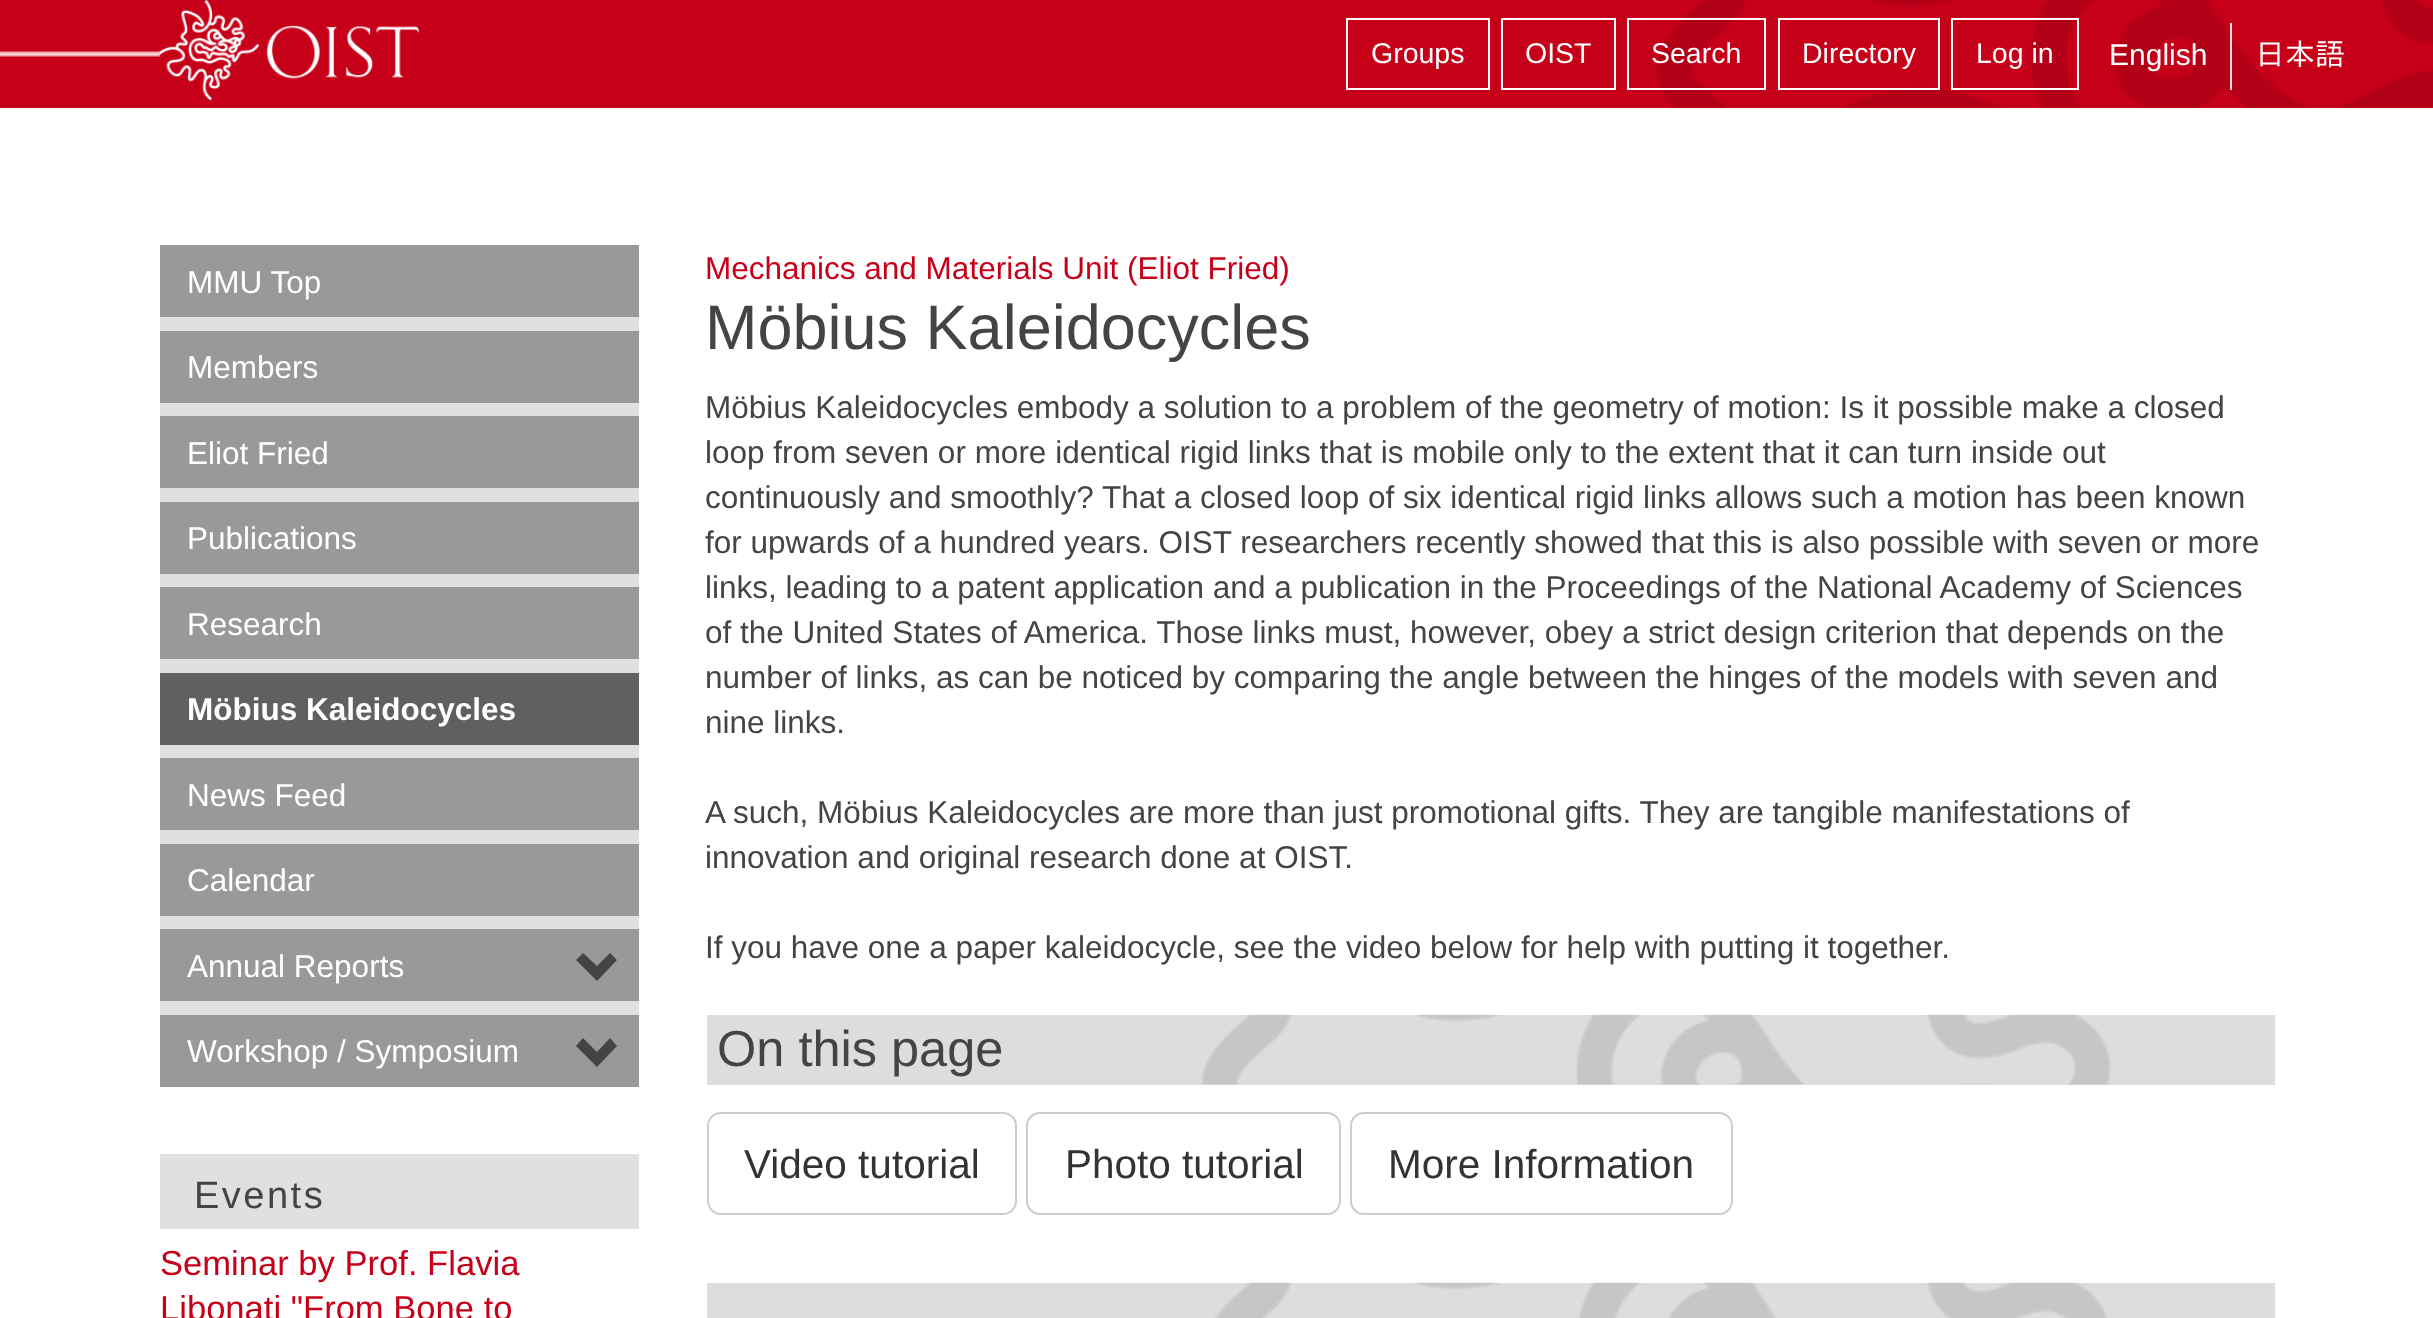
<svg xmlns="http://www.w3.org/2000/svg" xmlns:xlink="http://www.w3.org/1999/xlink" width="2433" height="1318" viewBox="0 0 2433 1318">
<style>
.cls-1{font:28.5px Liberation Sans;fill:#ffffff}
.cls-2{font:30px Liberation Sans;fill:#ffffff}
.cls-3{font:30px IPAPGothic;fill:#ffffff}
.cls-4{font:31.5px Liberation Sans;fill:#ffffff}
.cls-5{font:bold 31.5px Liberation Sans;fill:#ffffff}
.cls-6{font:38px Liberation Sans;letter-spacing:2.5px;fill:#444444}
.cls-7{font:34.6px Liberation Sans;fill:#c70019}
.cls-8{font:31.5px Liberation Sans;fill:#c70019}
.cls-9{font:63px Liberation Sans;fill:#444444}
.cls-10{font:31.5px Liberation Sans;fill:#444444}
.cls-11{font:50.5px Liberation Sans;fill:#444444}
.cls-12{font:40.5px Liberation Sans;fill:#333333}
</style>
<rect width="100%" height="100%" fill="#ffffff"/>
<rect fill="#c70019" x="0" y="0" width="2433" height="108"/>
<image xlink:href="image0.png" x="1656" y="0" width="777" height="108"/>
<image xlink:href="image1.png" x="0" y="51" width="160" height="6"/>
<image xlink:href="image2.png" x="159" y="0" width="260" height="101"/>
<rect fill="none" stroke="#ffffff" stroke-width="2" x="1347" y="19" width="142" height="70"/>
<rect fill="none" stroke="#ffffff" stroke-width="2" x="1502" y="19" width="113" height="70"/>
<rect fill="none" stroke="#ffffff" stroke-width="2" x="1628" y="19" width="137" height="70"/>
<rect fill="none" stroke="#ffffff" stroke-width="2" x="1779" y="19" width="160" height="70"/>
<rect fill="none" stroke="#ffffff" stroke-width="2" x="1952" y="19" width="126" height="70"/>
<rect fill="#dddddd" x="2230" y="23" width="2" height="67"/>
<rect fill="#e0e0e0" x="160" y="317" width="479" height="698"/>
<rect fill="#999999" x="160" y="245" width="479" height="72"/>
<rect fill="#999999" x="160" y="331" width="479" height="72"/>
<rect fill="#999999" x="160" y="416" width="479" height="72"/>
<rect fill="#999999" x="160" y="502" width="479" height="72"/>
<rect fill="#999999" x="160" y="587" width="479" height="72"/>
<rect fill="#606060" x="160" y="673" width="479" height="72"/>
<rect fill="#999999" x="160" y="758" width="479" height="72"/>
<rect fill="#999999" x="160" y="844" width="479" height="72"/>
<rect fill="#999999" x="160" y="929" width="479" height="72"/>
<path fill="#444444" d="M617 960L597 981L576 960L583 953L597 966L610 953Z"/>
<rect fill="#999999" x="160" y="1015" width="479" height="72"/>
<path fill="#444444" d="M617 1046L597 1067L576 1046L583 1038L597 1052L610 1038Z"/>
<rect fill="#e0e0e0" x="160" y="1154" width="479" height="75"/>
<rect fill="#dddddd" x="707" y="1015" width="1568" height="70"/>
<image xlink:href="image3.png" x="1201" y="1014" width="910" height="71"/>
<rect fill="none" stroke="#cccccc" stroke-width="2" x="708" y="1113" width="308" height="101" rx="13"/>
<rect fill="none" stroke="#cccccc" stroke-width="2" x="1027" y="1113" width="313" height="101" rx="13"/>
<rect fill="none" stroke="#cccccc" stroke-width="2" x="1351" y="1113" width="381" height="101" rx="13"/>
<rect fill="#dddddd" x="707" y="1283" width="1568" height="35"/>
<image xlink:href="image4.png" x="1215" y="1282" width="892" height="36"/>
<text class="cls-1" x="1371" y="63">Groups</text>
<text class="cls-1" x="1525" y="63">OIST</text>
<text class="cls-1" x="1651" y="63">Search</text>
<text class="cls-1" x="1802" y="63">Directory</text>
<text class="cls-1" x="1976" y="63">Log in</text>
<text class="cls-2" x="2109" y="65">English</text>
<text class="cls-3" x="2255" y="65">日本語</text>
<text class="cls-4" x="187" y="293">MMU Top</text>
<text class="cls-4" x="187" y="378">Members</text>
<text class="cls-4" x="187" y="464">Eliot Fried</text>
<text class="cls-4" x="187" y="549">Publications</text>
<text class="cls-4" x="187" y="635">Research</text>
<text class="cls-5" x="187" y="720">Möbius Kaleidocycles</text>
<text class="cls-4" x="187" y="806">News Feed</text>
<text class="cls-4" x="187" y="891">Calendar</text>
<text class="cls-4" x="187" y="977">Annual Reports</text>
<text class="cls-4" x="187" y="1062">Workshop / Symposium</text>
<text class="cls-6" x="194" y="1208">Events</text>
<text class="cls-7"><tspan x="160" y="1275">Seminar by Prof. Flavia</tspan><tspan x="160" y="1320">Libonati "From Bone to</tspan></text>
<text class="cls-8" x="705" y="279">Mechanics and Materials Unit (Eliot Fried)</text>
<text class="cls-9" x="705" y="349">Möbius Kaleidocycles</text>
<text class="cls-10"><tspan x="705" y="418">Möbius Kaleidocycles embody a solution to a problem of the geometry of motion: Is it possible make a closed</tspan><tspan x="705" y="463">loop from seven or more identical rigid links that is mobile only to the extent that it can turn inside out</tspan><tspan x="705" y="508">continuously and smoothly? That a closed loop of six identical rigid links allows such a motion has been known</tspan><tspan x="705" y="553">for upwards of a hundred years. OIST researchers recently showed that this is also possible with seven or more</tspan><tspan x="705" y="598">links, leading to a patent application and a publication in the Proceedings of the National Academy of Sciences</tspan><tspan x="705" y="643">of the United States of America. Those links must, however, obey a strict design criterion that depends on the</tspan><tspan x="705" y="688">number of links, as can be noticed by comparing the angle between the hinges of the models with seven and</tspan><tspan x="705" y="733">nine links.</tspan></text>
<text class="cls-10"><tspan x="705" y="823">A such, Möbius Kaleidocycles are more than just promotional gifts. They are tangible manifestations of</tspan><tspan x="705" y="868">innovation and original research done at OIST.</tspan></text>
<text class="cls-10" x="705" y="958">If you have one a paper kaleidocycle, see the video below for help with putting it together.</text>
<text class="cls-11" x="717" y="1066">On this page</text>
<text class="cls-12" x="744" y="1178">Video tutorial</text>
<text class="cls-12" x="1065" y="1178">Photo tutorial</text>
<text class="cls-12" x="1388" y="1178">More Information</text>
</svg>
